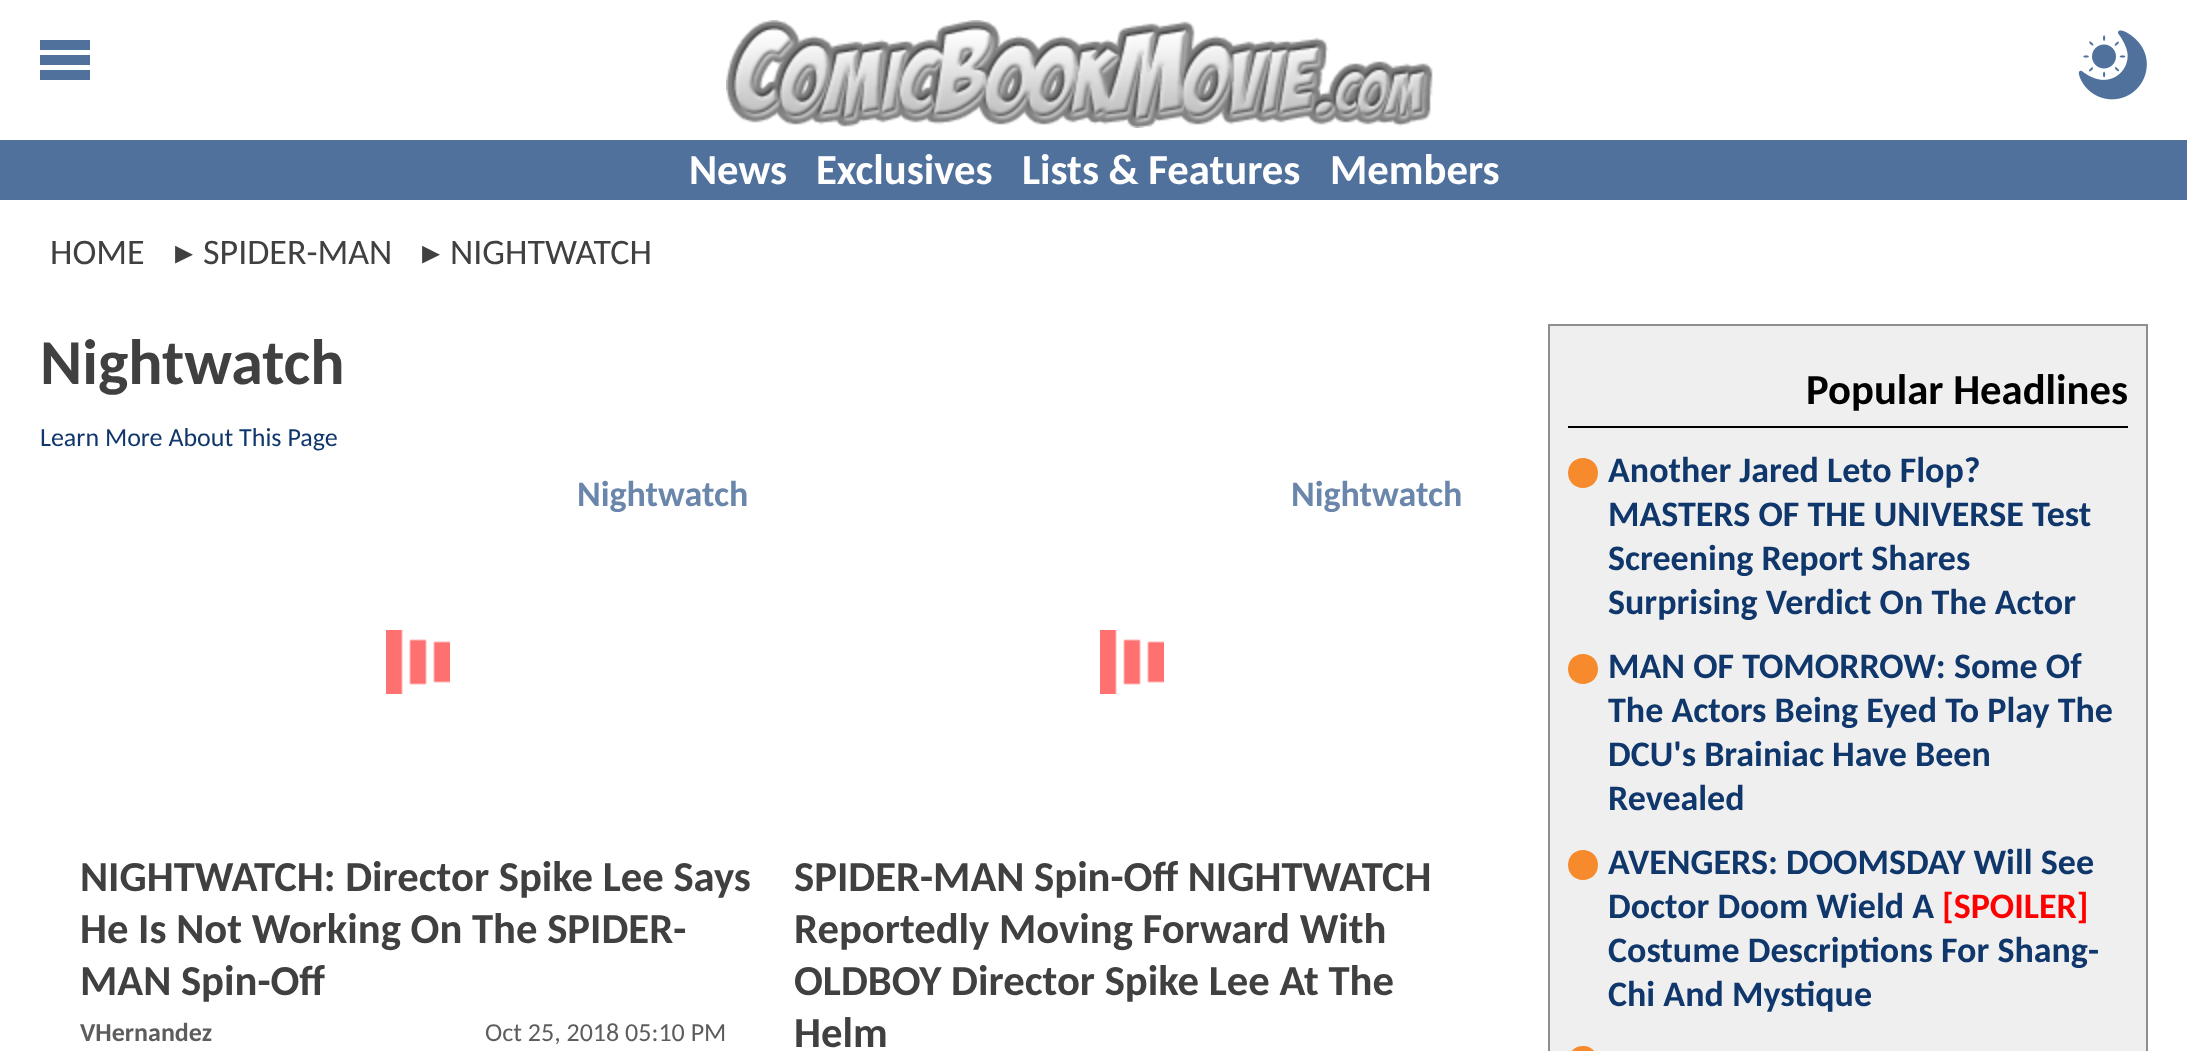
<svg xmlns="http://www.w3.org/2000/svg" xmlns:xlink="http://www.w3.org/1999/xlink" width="2187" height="1051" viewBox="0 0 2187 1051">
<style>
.cls-1{font:bold 42.7px Carlito;fill:#ffffff}
.cls-2{font:36px Carlito;fill:#404040}
.cls-3{font:36px DejaVu Sans;fill:#404040}
.cls-4{font:bold 64px Carlito;fill:#404040}
.cls-5{font:26px Carlito;fill:#10376b}
.cls-6{font:bold 36px Carlito;fill:#6a86ab}
.cls-7{font:bold 42.7px Carlito;fill:#404040}
.cls-8{font:bold 26px Carlito;fill:#5d5d5d}
.cls-9{font:26px Carlito;fill:#5d5d5d}
.cls-10{font:bold 42.7px Carlito;fill:#000000}
.cls-11{font:bold 36px Carlito;fill:#10376b}
.cls-12{font:bold 36px Carlito;fill:#ff0000}
</style>
<rect width="100%" height="100%" fill="#ffffff"/>
<rect fill="#50719c" x="40" y="40" width="50" height="10"/>
<rect fill="#50719c" x="40" y="55" width="50" height="10"/>
<rect fill="#50719c" x="40" y="70" width="50" height="10"/>
<image xlink:href="image0.png" x="726" y="20" width="707" height="108"/>
<image xlink:href="image1.png" x="2078" y="30" width="69" height="70"/>
<rect fill="#50719c" x="0" y="140" width="2187" height="60"/>
<image xlink:href="image2.png" x="386" y="630" width="64" height="64"/>
<image xlink:href="image2.png" x="1100" y="630" width="64" height="64"/>
<rect fill="#efefef" stroke="#8f8f8f" stroke-width="2" x="1549" y="325" width="598" height="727"/>
<rect fill="#000000" x="1568" y="426" width="560" height="2"/>
<path fill="#f68a2c" d="M1583 458C1591.5 458 1598 464.5 1598 473C1598 481.5 1591.5 488 1583 488C1574.5 488 1568 481.5 1568 473C1568 464.5 1574.5 458 1583 458Z"/>
<path fill="#f68a2c" d="M1583 654C1591.5 654 1598 660.5 1598 669C1598 677.5 1591.5 684 1583 684C1574.5 684 1568 677.5 1568 669C1568 660.5 1574.5 654 1583 654Z"/>
<path fill="#f68a2c" d="M1583 850C1591.5 850 1598 856.5 1598 865C1598 873.5 1591.5 880 1583 880C1574.5 880 1568 873.5 1568 865C1568 856.5 1574.5 850 1583 850Z"/>
<path fill="#f68a2c" d="M1583 1046C1591.5 1046 1598 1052.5 1598 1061C1598 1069.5 1591.5 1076 1583 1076C1574.5 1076 1568 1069.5 1568 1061C1568 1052.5 1574.5 1046 1583 1046Z"/>
<text class="cls-1" x="689" y="184">News</text>
<text class="cls-1" x="816" y="184">Exclusives</text>
<text class="cls-1" x="1022" y="184">Lists &amp; Features</text>
<text class="cls-1" x="1330" y="184">Members</text>
<text class="cls-2" x="50" y="264">HOME</text>
<text class="cls-3" x="175" y="264">▸</text>
<text class="cls-2" x="203" y="264">SPIDER-MAN</text>
<text class="cls-3" x="422" y="264">▸</text>
<text class="cls-2" x="450" y="264">NIGHTWATCH</text>
<text class="cls-4" x="40" y="384">Nightwatch</text>
<text class="cls-5" x="40" y="446">Learn More About This Page</text>
<text class="cls-6" x="577" y="506">Nightwatch</text>
<text class="cls-7"><tspan x="80" y="891">NIGHTWATCH: Director Spike Lee Says</tspan><tspan x="80" y="943">He Is Not Working On The SPIDER-</tspan><tspan x="80" y="995">MAN Spin-Off</tspan></text>
<text class="cls-8" x="80" y="1041">VHernandez</text>
<text class="cls-9" x="485" y="1041">Oct 25, 2018 05:10 PM</text>
<text class="cls-6" x="1291" y="506">Nightwatch</text>
<text class="cls-7"><tspan x="794" y="891">SPIDER-MAN Spin-Off NIGHTWATCH</tspan><tspan x="794" y="943">Reportedly Moving Forward With</tspan><tspan x="794" y="995">OLDBOY Director Spike Lee At The</tspan><tspan x="794" y="1047">Helm</tspan></text>
<text class="cls-10" x="1806" y="404">Popular Headlines</text>
<text class="cls-11"><tspan x="1608" y="482">Another Jared Leto Flop?</tspan><tspan x="1608" y="526">MASTERS OF THE UNIVERSE Test</tspan><tspan x="1608" y="570">Screening Report Shares</tspan><tspan x="1608" y="614">Surprising Verdict On The Actor</tspan><tspan x="1608" y="678">MAN OF TOMORROW: Some Of</tspan><tspan x="1608" y="722">The Actors Being Eyed To Play The</tspan><tspan x="1608" y="766">DCU's Brainiac Have Been</tspan><tspan x="1608" y="810">Revealed</tspan><tspan x="1608" y="874">AVENGERS: DOOMSDAY Will See</tspan><tspan x="1608" y="918">Doctor Doom Wield A</tspan></text>
<text class="cls-12" x="1942" y="918">[SPOILER]</text>
<text class="cls-11"><tspan x="1608" y="962">Costume Descriptions For Shang-</tspan><tspan x="1608" y="1006">Chi And Mystique</tspan></text>
</svg>
